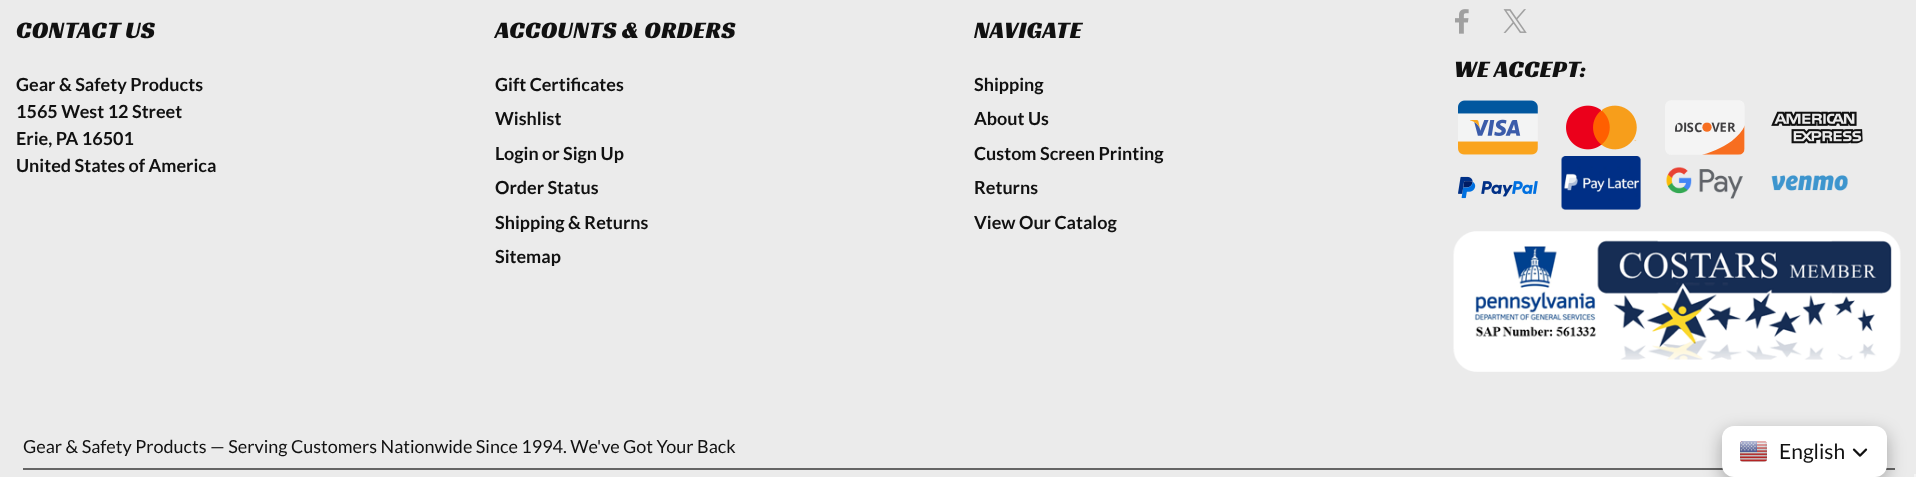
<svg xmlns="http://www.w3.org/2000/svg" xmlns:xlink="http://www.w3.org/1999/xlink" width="1916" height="477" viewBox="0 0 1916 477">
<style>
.cls-1{font:24px Racing Sans One;letter-spacing:0.4px;fill:#111111}
.cls-2{font:bold 18px Lato;fill:#111111}
.cls-3{font:18px Lato;fill:#111111}
.cls-4{font:21px Lato;fill:#111111}
</style>
<defs>
<linearGradient id="g1" gradientUnits="userSpaceOnUse" x1="1754" y1="441" x2="1754" y2="462"><stop offset="0" stop-color="#ffffff" stop-opacity="0.7"/><stop offset="1" stop-color="#000000" stop-opacity="0.15"/></linearGradient>
</defs>
<rect width="100%" height="100%" fill="#ebebeb"/>
<image xlink:href="image0.png" x="1455" y="9" width="14" height="25"/>
<image xlink:href="image1.png" x="1503" y="9" width="24" height="24"/>
<image xlink:href="image2.png" x="1458" y="100" width="80" height="55"/>
<image xlink:href="image3.png" x="1566" y="105" width="71" height="45"/>
<image xlink:href="image4.png" x="1665" y="100" width="80" height="55"/>
<image xlink:href="image5.png" x="1771" y="111" width="92" height="33"/>
<image xlink:href="image6.png" x="1458" y="176" width="80" height="23"/>
<image xlink:href="image7.png" x="1561" y="156" width="80" height="54"/>
<image xlink:href="image8.png" x="1666" y="167" width="77" height="32"/>
<image xlink:href="image9.png" x="1771" y="175" width="77" height="16"/>
<image xlink:href="image10.png" x="1453" y="231" width="448" height="141"/>
<rect fill="#656565" x="23" y="468" width="1872" height="2"/>
<rect fill="#000000" fill-opacity="0.3" filter="blur(9px)" x="1722" y="432" width="165" height="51" rx="12"/>
<rect fill="#ffffff" x="1722" y="426" width="165" height="51" rx="12"/>
<image xlink:href="image11.png" x="1740" y="441" width="27" height="21"/>
<rect fill="url(#g1)" x="1740" y="441" width="27" height="21" rx="3"/>
<rect fill="none" stroke="#767676" stroke-opacity="0.1" stroke-width="2" x="1741" y="442" width="25" height="19" rx="2"/>
<image xlink:href="image12.png" x="1852" y="448" width="16" height="9"/>
<rect fill="#f5f5f5" x="1914" y="474" width="2" height="3"/>
<text class="cls-1" x="16" y="38">CONTACT US</text>
<text class="cls-2"><tspan x="16" y="91">Gear &amp; Safety Products</tspan><tspan x="16" y="118">1565 West 12 Street</tspan><tspan x="16" y="145">Erie, PA 16501</tspan><tspan x="16" y="172">United States of America</tspan></text>
<text class="cls-1" x="495" y="38">ACCOUNTS &amp; ORDERS</text>
<text class="cls-2"><tspan x="495" y="91">Gift Certificates</tspan><tspan x="495" y="125">Wishlist</tspan><tspan x="495" y="160">Login or</tspan></text>
<text class="cls-2" x="563" y="160">Sign Up</text>
<text class="cls-2"><tspan x="495" y="194">Order Status</tspan><tspan x="495" y="229">Shipping &amp; Returns</tspan><tspan x="495" y="263">Sitemap</tspan></text>
<text class="cls-1" x="974" y="38">NAVIGATE</text>
<text class="cls-2"><tspan x="974" y="91">Shipping</tspan><tspan x="974" y="125">About Us</tspan><tspan x="974" y="160">Custom Screen Printing</tspan><tspan x="974" y="194">Returns</tspan><tspan x="974" y="229">View Our Catalog</tspan></text>
<text class="cls-1" x="1454" y="77">WE ACCEPT:</text>
<text class="cls-3" x="23" y="453">Gear &amp; Safety Products — Serving Customers Nationwide Since 1994. We've Got Your Back</text>
<text class="cls-4" x="1779" y="459">English</text>
</svg>
